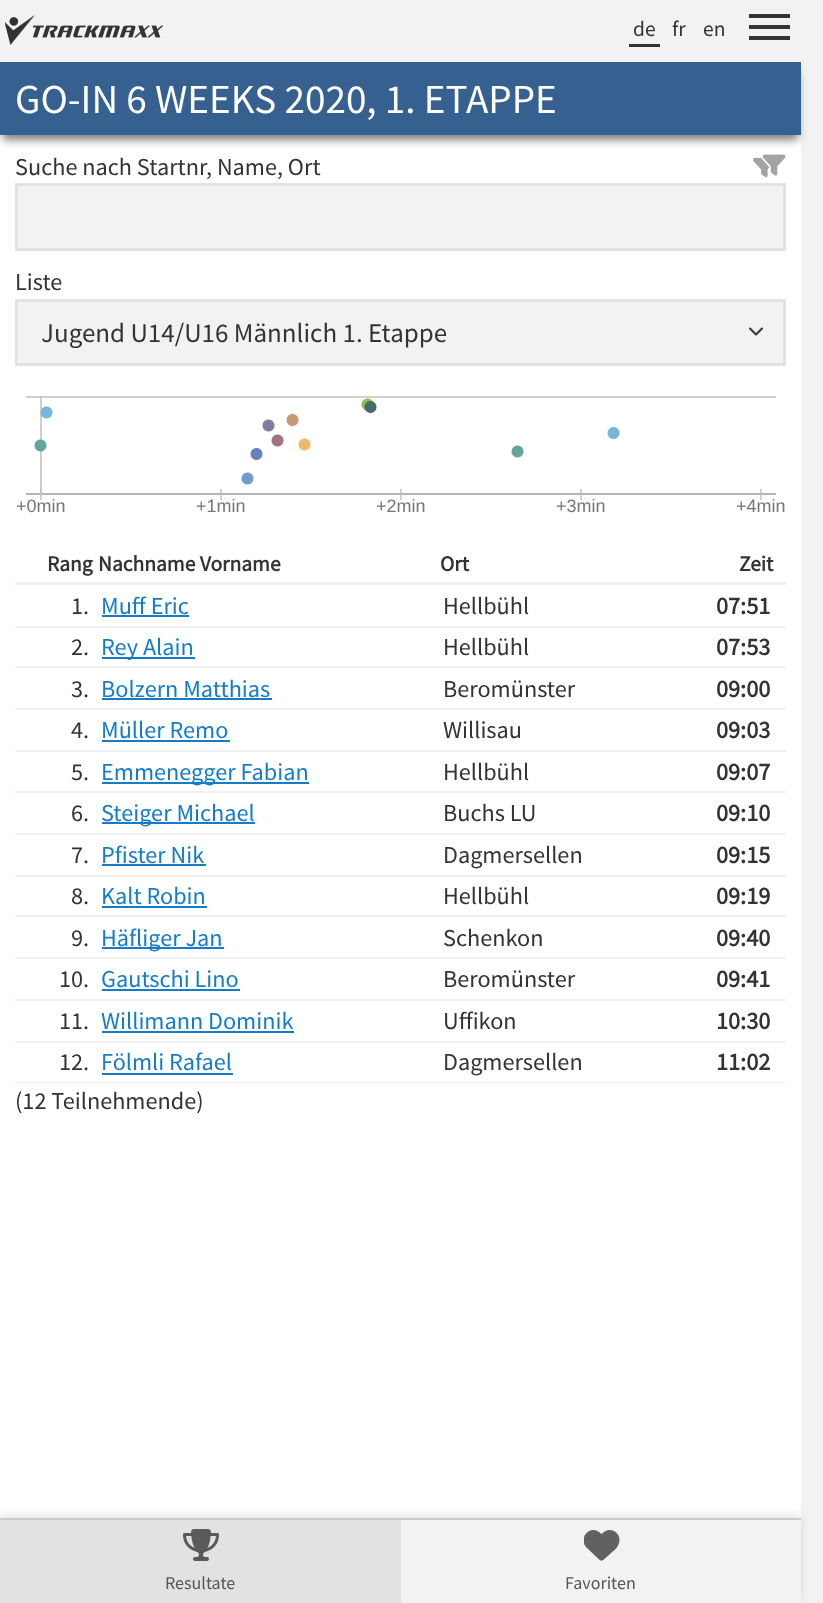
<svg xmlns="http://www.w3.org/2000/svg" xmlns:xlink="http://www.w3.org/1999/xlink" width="823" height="1603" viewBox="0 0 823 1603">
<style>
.cls-1{font:21.5px Source Sans Pro;fill:#333333}
.cls-2{font:41.2px Source Sans Pro;fill:#ffffff}
.cls-3{font:24.25px Source Sans Pro;fill:#333333}
.cls-4{font:27px Source Sans Pro;fill:#333333}
.cls-5{font:18px Liberation Sans;fill:#767676}
.cls-6{font:bold 21.5px Source Sans Pro;fill:#333333}
.cls-7{font:24.25px Source Sans Pro;fill:#157cc8}
.cls-8{font:bold 24.25px Source Sans Pro;fill:#333333}
.cls-9{font:18px Source Sans Pro;fill:#555555}
</style>
<defs>
<clipPath id="clip1"><rect x="584" y="1527" width="36" height="36"/></clipPath>
</defs>
<rect width="100%" height="100%" fill="#f2f2f2"/>
<image xlink:href="image0.png" x="5" y="15" width="159" height="30"/>
<rect fill="#333333" x="629" y="44" width="31" height="3"/>
<path fill="#333333" d="M749 40H790V36H749ZM749 29H790V25H749ZM749 14V18H790V14Z"/>
<rect fill="#ffffff" x="0" y="135" width="801" height="1383"/>
<rect fill="#000000" fill-opacity="0.5" filter="blur(4px)" x="3" y="72" width="795" height="68"/>
<rect fill="#366090" x="0" y="62" width="801" height="73"/>
<image xlink:href="image1.png" x="753" y="154" width="33" height="24"/>
<rect fill="#f2f2f2" stroke="#e2e2e2" stroke-width="3" x="16.5" y="184.5" width="768" height="65"/>
<rect fill="#f2f2f2" x="18" y="302" width="765" height="61"/>
<path fill="none" stroke="#333333" stroke-width="2" stroke-linecap="round" stroke-linejoin="round" d="M750 328.5L756 334.5L762 328.5"/>
<rect fill="none" stroke="#e2e2e2" stroke-width="3" x="16.5" y="300.5" width="768" height="64"/>
<image xlink:href="image2.png" x="26" y="396" width="750" height="104"/>
<rect fill="#f0f0f0" x="15" y="582" width="771" height="3"/>
<rect fill="#f0f0f0" x="15" y="626" width="771" height="2"/>
<rect fill="#157cc8" x="102" y="615" width="87" height="2"/>
<rect fill="#f0f0f0" x="15" y="666" width="771" height="2"/>
<rect fill="#157cc8" x="102" y="657" width="93" height="2"/>
<rect fill="#f0f0f0" x="15" y="708" width="771" height="2"/>
<rect fill="#157cc8" x="102" y="698" width="170" height="2"/>
<rect fill="#f0f0f0" x="15" y="750" width="771" height="2"/>
<rect fill="#157cc8" x="102" y="740" width="128" height="2"/>
<rect fill="#f0f0f0" x="15" y="791" width="771" height="2"/>
<rect fill="#157cc8" x="102" y="782" width="207" height="2"/>
<rect fill="#f0f0f0" x="15" y="833" width="771" height="2"/>
<rect fill="#157cc8" x="102" y="822" width="153" height="2"/>
<rect fill="#f0f0f0" x="15" y="875" width="771" height="2"/>
<rect fill="#157cc8" x="102" y="864" width="104" height="2"/>
<rect fill="#f0f0f0" x="15" y="915" width="771" height="2"/>
<rect fill="#157cc8" x="102" y="906" width="105" height="2"/>
<rect fill="#f0f0f0" x="15" y="957" width="771" height="2"/>
<rect fill="#157cc8" x="102" y="947" width="122" height="2"/>
<rect fill="#f0f0f0" x="15" y="999" width="771" height="2"/>
<rect fill="#157cc8" x="102" y="989" width="138" height="2"/>
<rect fill="#f0f0f0" x="15" y="1041" width="771" height="2"/>
<rect fill="#157cc8" x="102" y="1031" width="192" height="2"/>
<rect fill="#f0f0f0" x="15" y="1082" width="771" height="1"/>
<rect fill="#157cc8" x="102" y="1073" width="131" height="2"/>
<rect fill="#000000" fill-opacity="0.1" filter="blur(4px)" x="0" y="1515" width="801" height="86"/>
<rect fill="#f2f2f2" x="401" y="1520" width="400" height="83"/>
<rect fill="#cccccc" x="0" y="1518" width="801" height="2"/>
<rect fill="#e2e2e2" x="0" y="1520" width="401" height="83"/>
<image xlink:href="image3.png" x="183" y="1529" width="36" height="32"/>
<g clip-path="url(#clip1)">
<path fill="#616161" d="M587 1548L597.5 1558C601.5 1561.5 601.5 1561.5 605.5 1558L610 1554C612.5 1551.5 616.5 1549 618 1545.5C624 1535 611 1524 601.5 1534C590.5 1522.5 577 1539 587 1548Z"/>
</g>
<text class="cls-1" x="633" y="36">de</text>
<text class="cls-1" x="672" y="36">fr</text>
<text class="cls-1" x="703" y="36">en</text>
<text class="cls-2" x="15" y="113">GO-IN 6 WEEKS 2020, 1. ETAPPE</text>
<text class="cls-3" x="15" y="175">Suche nach Startnr, Name, Ort</text>
<text class="cls-3" x="15" y="290">Liste</text>
<text class="cls-4" x="41" y="342">Jugend U14/U16 Männlich 1. Etappe</text>
<text class="cls-5" x="16" y="512">+0min</text>
<text class="cls-5" x="196" y="512">+1min</text>
<text class="cls-5" x="376" y="512">+2min</text>
<text class="cls-5" x="556" y="512">+3min</text>
<text class="cls-5" x="736" y="512">+4min</text>
<text class="cls-6" x="47" y="571">Rang</text>
<text class="cls-6" x="98" y="571">Nachname Vorname</text>
<text class="cls-6" x="440" y="571">Ort</text>
<text class="cls-6" x="739" y="571">Zeit</text>
<text class="cls-3" x="71" y="614">1.</text>
<text class="cls-7" x="101" y="614">Muff Eric</text>
<text class="cls-3" x="443" y="614">Hellbühl</text>
<text class="cls-8" x="716" y="614">07:51</text>
<text class="cls-3" x="71" y="655">2.</text>
<text class="cls-7" x="101" y="655">Rey Alain</text>
<text class="cls-3" x="443" y="655">Hellbühl</text>
<text class="cls-8" x="716" y="655">07:53</text>
<text class="cls-3" x="71" y="697">3.</text>
<text class="cls-7" x="101" y="697">Bolzern Matthias</text>
<text class="cls-3" x="443" y="697">Beromünster</text>
<text class="cls-8" x="716" y="697">09:00</text>
<text class="cls-3" x="71" y="738">4.</text>
<text class="cls-7" x="101" y="738">Müller Remo</text>
<text class="cls-3" x="443" y="738">Willisau</text>
<text class="cls-8" x="716" y="738">09:03</text>
<text class="cls-3" x="71" y="780">5.</text>
<text class="cls-7" x="101" y="780">Emmenegger Fabian</text>
<text class="cls-3" x="443" y="780">Hellbühl</text>
<text class="cls-8" x="716" y="780">09:07</text>
<text class="cls-3" x="71" y="821">6.</text>
<text class="cls-7" x="101" y="821">Steiger Michael</text>
<text class="cls-3" x="443" y="821">Buchs LU</text>
<text class="cls-8" x="716" y="821">09:10</text>
<text class="cls-3" x="71" y="863">7.</text>
<text class="cls-7" x="101" y="863">Pfister Nik</text>
<text class="cls-3" x="443" y="863">Dagmersellen</text>
<text class="cls-8" x="716" y="863">09:15</text>
<text class="cls-3" x="71" y="904">8.</text>
<text class="cls-7" x="101" y="904">Kalt Robin</text>
<text class="cls-3" x="443" y="904">Hellbühl</text>
<text class="cls-8" x="716" y="904">09:19</text>
<text class="cls-3" x="71" y="946">9.</text>
<text class="cls-7" x="101" y="946">Häfliger Jan</text>
<text class="cls-3" x="443" y="946">Schenkon</text>
<text class="cls-8" x="716" y="946">09:40</text>
<text class="cls-3" x="59" y="987">10.</text>
<text class="cls-7" x="101" y="987">Gautschi Lino</text>
<text class="cls-3" x="443" y="987">Beromünster</text>
<text class="cls-8" x="716" y="987">09:41</text>
<text class="cls-3" x="59" y="1029">11.</text>
<text class="cls-7" x="101" y="1029">Willimann Dominik</text>
<text class="cls-3" x="443" y="1029">Uffikon</text>
<text class="cls-8" x="716" y="1029">10:30</text>
<text class="cls-3" x="59" y="1070">12.</text>
<text class="cls-7" x="101" y="1070">Fölmli Rafael</text>
<text class="cls-3" x="443" y="1070">Dagmersellen</text>
<text class="cls-8" x="716" y="1070">11:02</text>
<text class="cls-3" x="15" y="1109">(12 Teilnehmende)</text>
<text class="cls-9" x="165" y="1589">Resultate</text>
<text class="cls-9" x="565" y="1589">Favoriten</text>
</svg>
